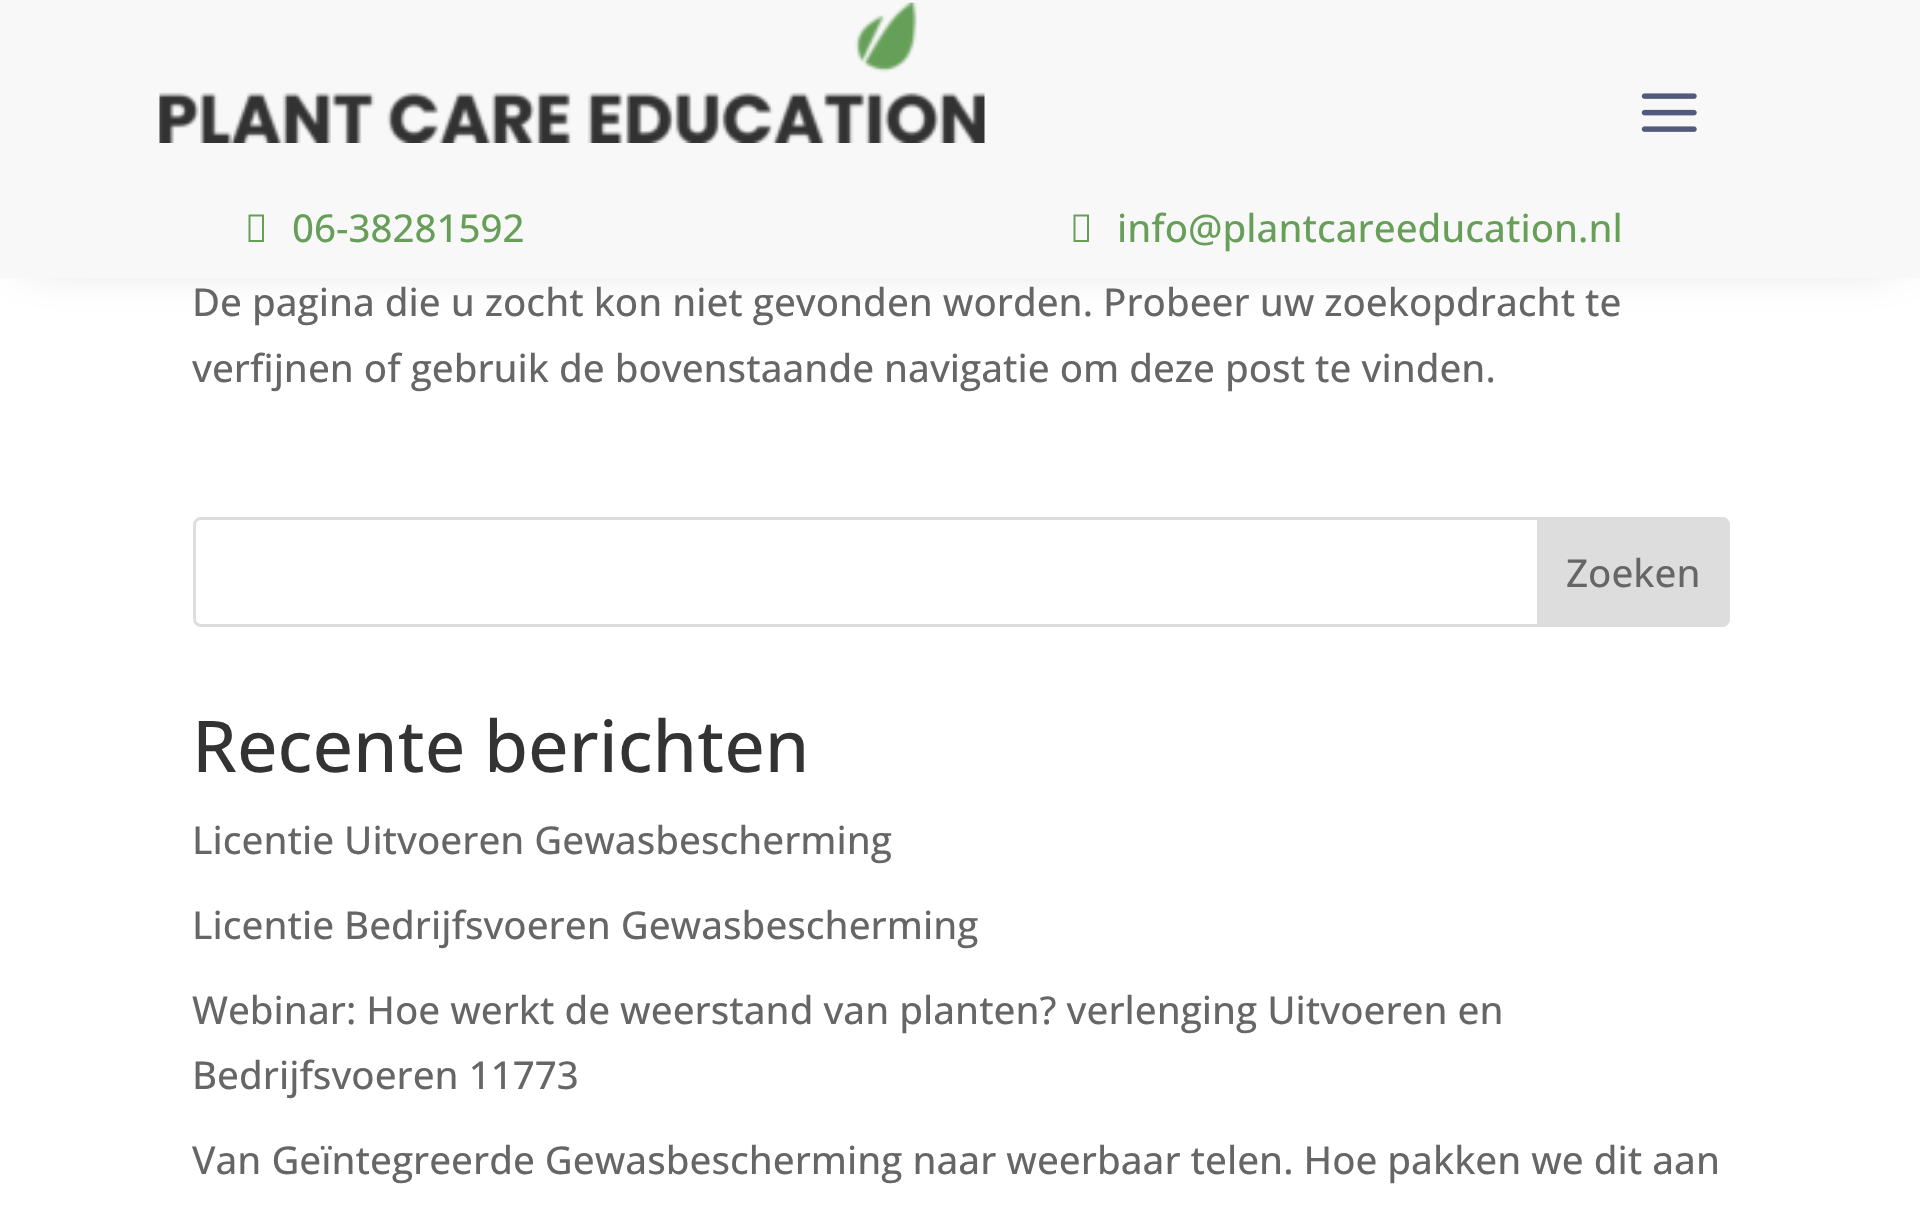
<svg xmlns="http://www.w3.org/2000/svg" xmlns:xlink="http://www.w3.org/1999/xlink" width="1920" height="1223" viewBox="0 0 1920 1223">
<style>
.cls-1{font:500 38.5px Open Sans;fill:#679f59}
.cls-2{font:500 38.5px Open Sans;fill:#666666}
.cls-3{font:500 71.5px Open Sans;fill:#333333}
</style>
<rect width="100%" height="100%" fill="#ffffff"/>
<rect fill="#000000" fill-opacity="0.3" filter="blur(27.5px)" x="28" y="-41" width="1867" height="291"/>
<rect fill="#f8f8f8" x="0" y="0" width="1920" height="278"/>
<image xlink:href="image0.png" x="159" y="2" width="826" height="141"/>
<image xlink:href="image1.png" x="1641" y="93" width="56" height="39"/>
<path fill="#679f59" d="M248.5 242V214.5H264V242ZM250.5 240H262V216.5H250.5Z"/>
<path fill="#679f59" d="M1073.5 242V214.5H1089V242ZM1075.5 240H1087V216.5H1075.5Z"/>
<rect fill="none" stroke="#dddddd" stroke-width="3" x="194.5" y="518.5" width="1534" height="107" rx="6.5"/>
<path fill="#dddddd" stroke="#dddddd" stroke-width="3" d="M1538.5 518.5H1722C1725.5 518.5 1728.5 521.5 1728.5 525V619C1728.5 622.5 1725.5 625.5 1722 625.5H1538.5Z"/>
<text class="cls-1" x="292" y="242">06-38281592</text>
<text class="cls-1" x="1117" y="242">info@plantcareeducation.nl</text>
<text class="cls-2"><tspan x="192" y="316">De pagina die u zocht kon niet gevonden worden. Probeer uw zoekopdracht te</tspan><tspan x="192" y="382">verfijnen of gebruik de bovenstaande navigatie om deze post te vinden.</tspan></text>
<text class="cls-2" x="1566" y="587">Zoeken</text>
<text class="cls-3" x="192" y="772">Recente berichten</text>
<text class="cls-2" x="192" y="854">Licentie Uitvoeren Gewasbescherming</text>
<text class="cls-2" x="192" y="939">Licentie Bedrijfsvoeren Gewasbescherming</text>
<text class="cls-2"><tspan x="192" y="1024">Webinar: Hoe werkt de weerstand van planten? verlenging Uitvoeren en</tspan><tspan x="192" y="1089">Bedrijfsvoeren 11773</tspan></text>
<text class="cls-2" x="192" y="1174">Van Geïntegreerde Gewasbescherming naar weerbaar telen. Hoe pakken we dit aan</text>
</svg>
